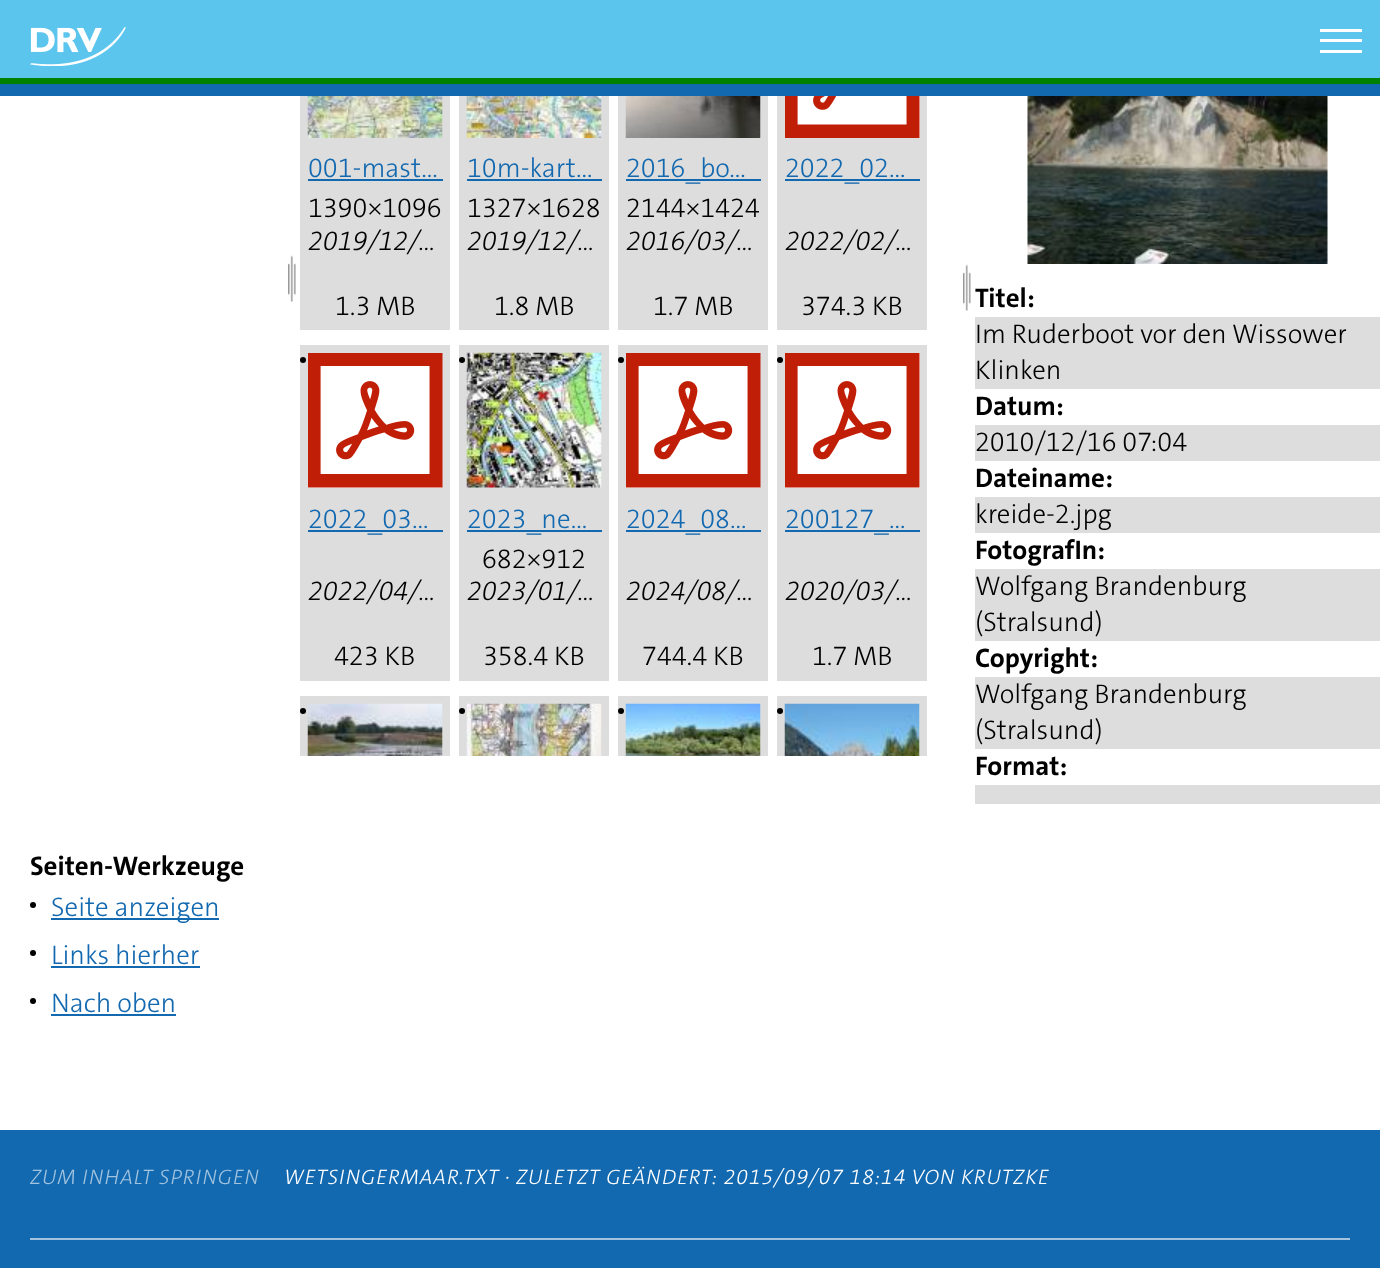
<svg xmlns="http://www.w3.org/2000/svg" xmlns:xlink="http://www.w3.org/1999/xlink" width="1380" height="1268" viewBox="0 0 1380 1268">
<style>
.cls-1{font:300 27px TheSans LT;fill:#1369b0}
.cls-2{font:300 27px TheSans LT;fill:#000000}
.cls-3{font:italic 300 27px TheSans LT;fill:#000000}
.cls-4{font:bold 27px TheSans LT;fill:#000000}
.cls-5{font:italic 300 21px TheSans LT;letter-spacing:1.05px;fill:#a1c3df}
.cls-6{font:italic 300 21px TheSans LT;letter-spacing:1.05px;fill:#ffffff}
</style>
<rect width="100%" height="100%" fill="#ffffff"/>
<rect fill="#5cc5ed" x="0" y="0" width="1380" height="78"/>
<image xlink:href="image0.png" x="30" y="27" width="96" height="39"/>
<rect fill="#ffffff" x="1320" y="29" width="42" height="3"/>
<rect fill="#ffffff" x="1320" y="39" width="42" height="3"/>
<rect fill="#ffffff" x="1320" y="50" width="42" height="3"/>
<rect fill="#008000" x="0" y="78" width="1380" height="6"/>
<rect fill="#1369b0" x="0" y="84" width="1380" height="12"/>
<image xlink:href="image1.png" x="288" y="255" width="8" height="47"/>
<rect fill="#dddddd" x="300" y="96" width="150" height="234"/>
<image xlink:href="image2.png" x="307" y="96" width="136" height="42"/>
<rect fill="#1369b0" x="308" y="179" width="135" height="2"/>
<rect fill="#dddddd" x="459" y="96" width="150" height="234"/>
<image xlink:href="image3.png" x="466" y="96" width="136" height="42"/>
<rect fill="#1369b0" x="467" y="179" width="135" height="2"/>
<rect fill="#dddddd" x="618" y="96" width="150" height="234"/>
<image xlink:href="image4.png" x="625" y="96" width="136" height="42"/>
<rect fill="#1369b0" x="626" y="179" width="135" height="2"/>
<rect fill="#dddddd" x="777" y="96" width="150" height="234"/>
<image xlink:href="image5.png" x="785" y="96" width="135" height="42"/>
<rect fill="#1369b0" x="785" y="179" width="135" height="2"/>
<rect fill="#dddddd" x="300" y="345" width="150" height="336"/>
<circle fill="#000000" cx="303" cy="360" r="3"/>
<image xlink:href="image6.png" x="308" y="353" width="135" height="135"/>
<rect fill="#1369b0" x="308" y="530" width="135" height="2"/>
<rect fill="#dddddd" x="459" y="345" width="150" height="336"/>
<circle fill="#000000" cx="462" cy="360" r="3"/>
<image xlink:href="image7.png" x="466" y="352" width="136" height="136"/>
<rect fill="#1369b0" x="467" y="530" width="135" height="2"/>
<rect fill="#dddddd" x="618" y="345" width="150" height="336"/>
<circle fill="#000000" cx="621" cy="360" r="3"/>
<image xlink:href="image6.png" x="626" y="353" width="135" height="135"/>
<rect fill="#1369b0" x="626" y="530" width="135" height="2"/>
<rect fill="#dddddd" x="777" y="345" width="150" height="336"/>
<circle fill="#000000" cx="780" cy="360" r="3"/>
<image xlink:href="image8.png" x="785" y="353" width="135" height="135"/>
<rect fill="#1369b0" x="785" y="530" width="135" height="2"/>
<rect fill="#dddddd" x="300" y="696" width="150" height="60"/>
<circle fill="#000000" cx="303" cy="711" r="3"/>
<image xlink:href="image9.png" x="307" y="703" width="136" height="53"/>
<rect fill="#dddddd" x="459" y="696" width="150" height="60"/>
<circle fill="#000000" cx="462" cy="711" r="3"/>
<image xlink:href="image10.png" x="466" y="703" width="136" height="53"/>
<rect fill="#dddddd" x="618" y="696" width="150" height="60"/>
<circle fill="#000000" cx="621" cy="711" r="3"/>
<image xlink:href="image11.png" x="625" y="703" width="136" height="53"/>
<rect fill="#dddddd" x="777" y="696" width="150" height="60"/>
<circle fill="#000000" cx="780" cy="711" r="3"/>
<image xlink:href="image12.png" x="784" y="703" width="136" height="53"/>
<image xlink:href="image13.png" x="963" y="264" width="8" height="47"/>
<image xlink:href="image14.png" x="1027" y="96" width="301" height="168"/>
<rect fill="#dddddd" x="975" y="317" width="405" height="72"/>
<rect fill="#dddddd" x="975" y="425" width="405" height="36"/>
<rect fill="#dddddd" x="975" y="497" width="405" height="36"/>
<rect fill="#dddddd" x="975" y="569" width="405" height="72"/>
<rect fill="#dddddd" x="975" y="677" width="405" height="72"/>
<rect fill="#dddddd" x="975" y="785" width="405" height="19"/>
<circle fill="#000000" cx="33" cy="905" r="3"/>
<rect fill="#1369b0" x="51" y="918" width="168" height="2"/>
<circle fill="#000000" cx="33" cy="953" r="3"/>
<rect fill="#1369b0" x="51" y="966" width="149" height="2"/>
<circle fill="#000000" cx="33" cy="1001" r="3"/>
<rect fill="#1369b0" x="51" y="1014" width="125" height="2"/>
<rect fill="#1369b0" x="0" y="1130" width="1380" height="138"/>
<rect fill="#a1c3df" x="30" y="1238" width="1320" height="2"/>
<text class="cls-1" x="308" y="177">001-mast…</text>
<text class="cls-2" x="308" y="217">1390×1096</text>
<text class="cls-3" x="308" y="250">2019/12/…</text>
<text class="cls-2" x="335" y="315">1.3 MB</text>
<text class="cls-1" x="467" y="177">10m-kart…</text>
<text class="cls-2" x="467" y="217">1327×1628</text>
<text class="cls-3" x="467" y="250">2019/12/…</text>
<text class="cls-2" x="494" y="315">1.8 MB</text>
<text class="cls-1" x="626" y="177">2016_bo…</text>
<text class="cls-2" x="626" y="217">2144×1424</text>
<text class="cls-3" x="626" y="250">2016/03/…</text>
<text class="cls-2" x="653" y="315">1.7 MB</text>
<text class="cls-1" x="785" y="177">2022_02…</text>
<text class="cls-3" x="785" y="250">2022/02/…</text>
<text class="cls-2" x="801" y="315">374.3 KB</text>
<text class="cls-1" x="308" y="528">2022_03…</text>
<text class="cls-3" x="308" y="600">2022/04/…</text>
<text class="cls-2" x="334" y="665">423 KB</text>
<text class="cls-1" x="467" y="528">2023_ne…</text>
<text class="cls-2" x="482" y="568">682×912</text>
<text class="cls-3" x="467" y="600">2023/01/…</text>
<text class="cls-2" x="483" y="665">358.4 KB</text>
<text class="cls-1" x="626" y="528">2024_08…</text>
<text class="cls-3" x="626" y="600">2024/08/…</text>
<text class="cls-2" x="642" y="665">744.4 KB</text>
<text class="cls-1" x="785" y="528">200127_…</text>
<text class="cls-3" x="785" y="600">2020/03/…</text>
<text class="cls-2" x="812" y="665">1.7 MB</text>
<text class="cls-4" x="975" y="307">Titel:</text>
<text class="cls-2"><tspan x="975" y="343">Im Ruderboot vor den Wissower</tspan><tspan x="975" y="379">Klinken</tspan></text>
<text class="cls-4" x="975" y="415">Datum:</text>
<text class="cls-2" x="975" y="451">2010/12/16 07:04</text>
<text class="cls-4" x="975" y="487">Dateiname:</text>
<text class="cls-2" x="975" y="523">kreide-2.jpg</text>
<text class="cls-4" x="975" y="559">FotografIn:</text>
<text class="cls-2"><tspan x="975" y="595">Wolfgang Brandenburg</tspan><tspan x="975" y="631">(Stralsund)</tspan></text>
<text class="cls-4" x="975" y="667">Copyright:</text>
<text class="cls-2"><tspan x="975" y="703">Wolfgang Brandenburg</tspan><tspan x="975" y="739">(Stralsund)</tspan></text>
<text class="cls-4" x="975" y="775">Format:</text>
<text class="cls-4" x="30" y="875">Seiten-Werkzeuge</text>
<text class="cls-1"><tspan x="51" y="916">Seite anzeigen</tspan><tspan x="51" y="964">Links hierher</tspan><tspan x="51" y="1012">Nach oben</tspan></text>
<text class="cls-5" x="30" y="1184">ZUM INHALT SPRINGEN</text>
<text class="cls-6" x="284" y="1184">WETSINGERMAAR.TXT · ZULETZT GEÄNDERT: 2015/09/07 18:14 VON KRUTZKE</text>
</svg>
